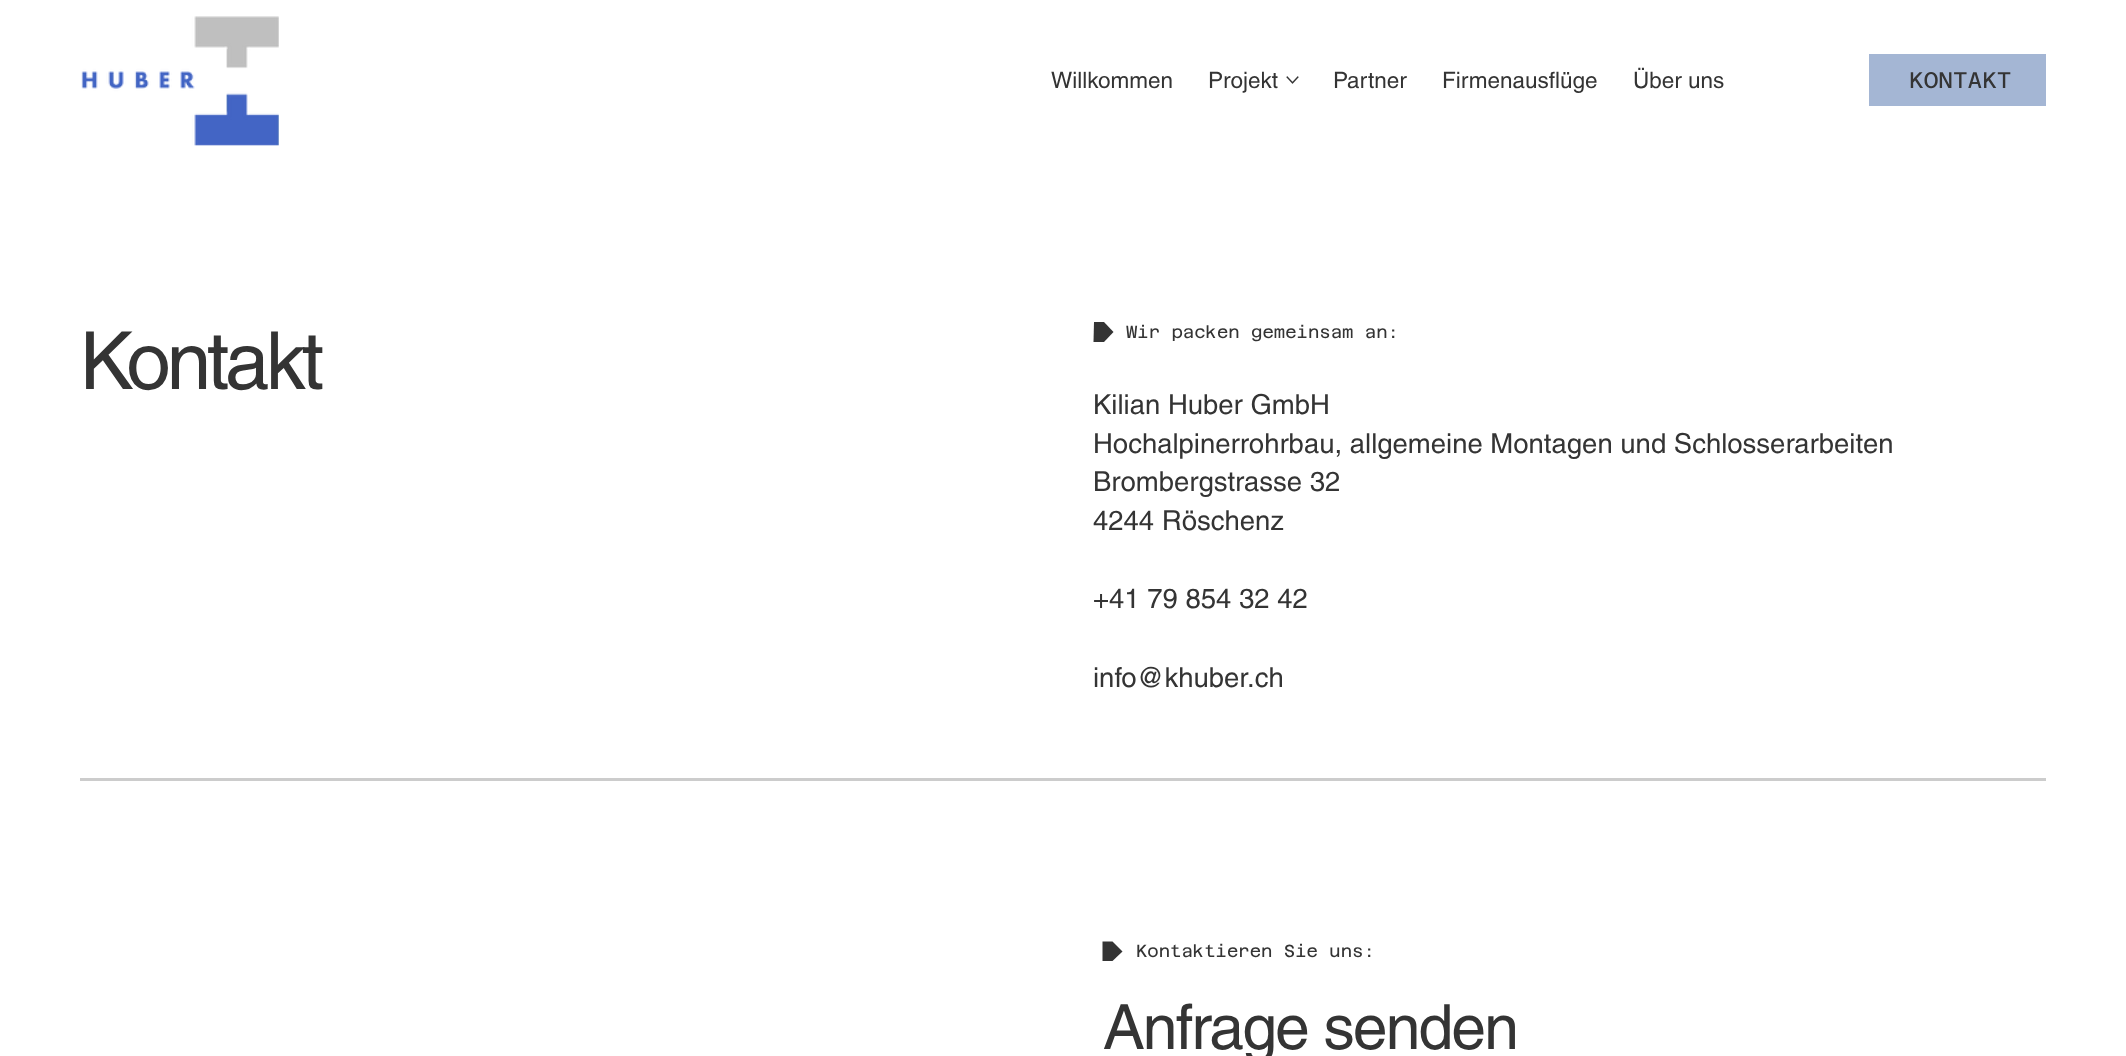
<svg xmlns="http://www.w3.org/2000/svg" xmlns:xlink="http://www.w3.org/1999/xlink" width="2126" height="1056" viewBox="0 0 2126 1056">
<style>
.cls-1{font:22.5px helvetica;fill:#343434}
.cls-2{font:22.5px Azeret Mono;fill:#343434}
.cls-3{font:80px helvetica;letter-spacing:-4px;fill:#343434}
.cls-4{font:17.5px Azeret Mono;fill:#343434}
.cls-5{font:27.5px helvetica;fill:#343434}
.cls-6{font:62.5px helvetica;letter-spacing:-1.9px;fill:#343434}
</style>
<rect width="100%" height="100%" fill="#ffffff"/>
<image xlink:href="image0.png" x="81" y="16" width="198" height="130"/>
<image xlink:href="image1.png" x="1286" y="76" width="13" height="8"/>
<rect fill="#a4b6d4" x="1869" y="54" width="177" height="52"/>
<path fill="#343434" d="M1104 342L1113.5 332L1104 322H1094L1093.5 342Z"/>
<rect fill="#cccccc" x="80" y="778" width="1966" height="3"/>
<path fill="#343434" d="M1112.5 961L1122.5 951.5L1112.5 941.5H1102.5V961Z"/>
<text class="cls-1" x="1051" y="88">Willkommen</text>
<text class="cls-1" x="1208" y="88">Projekt</text>
<text class="cls-1" x="1333" y="88">Partner</text>
<text class="cls-1" x="1442" y="88">Firmenausflüge</text>
<text class="cls-1" x="1633" y="88">Über uns</text>
<text class="cls-2" x="1909" y="88">KONTAKT</text>
<text class="cls-3" x="80" y="389">Kontakt</text>
<text class="cls-4" x="1126" y="338">Wir packen gemeinsam an:</text>
<text class="cls-5"><tspan x="1093" y="414">Kilian Huber GmbH</tspan><tspan x="1093" y="453">Hochalpinerrohrbau, allgemeine Montagen und Schlosserarbeiten</tspan><tspan x="1093" y="491">Brombergstrasse 32</tspan><tspan x="1093" y="530">4244 Röschenz</tspan></text>
<text class="cls-5" x="1093" y="608">+41 79 854 32 42</text>
<text class="cls-5" x="1093" y="687">info@khuber.ch</text>
<text class="cls-4" x="1136" y="957">Kontaktieren Sie uns:</text>
<text class="cls-6" x="1103" y="1049">Anfrage senden</text>
</svg>
